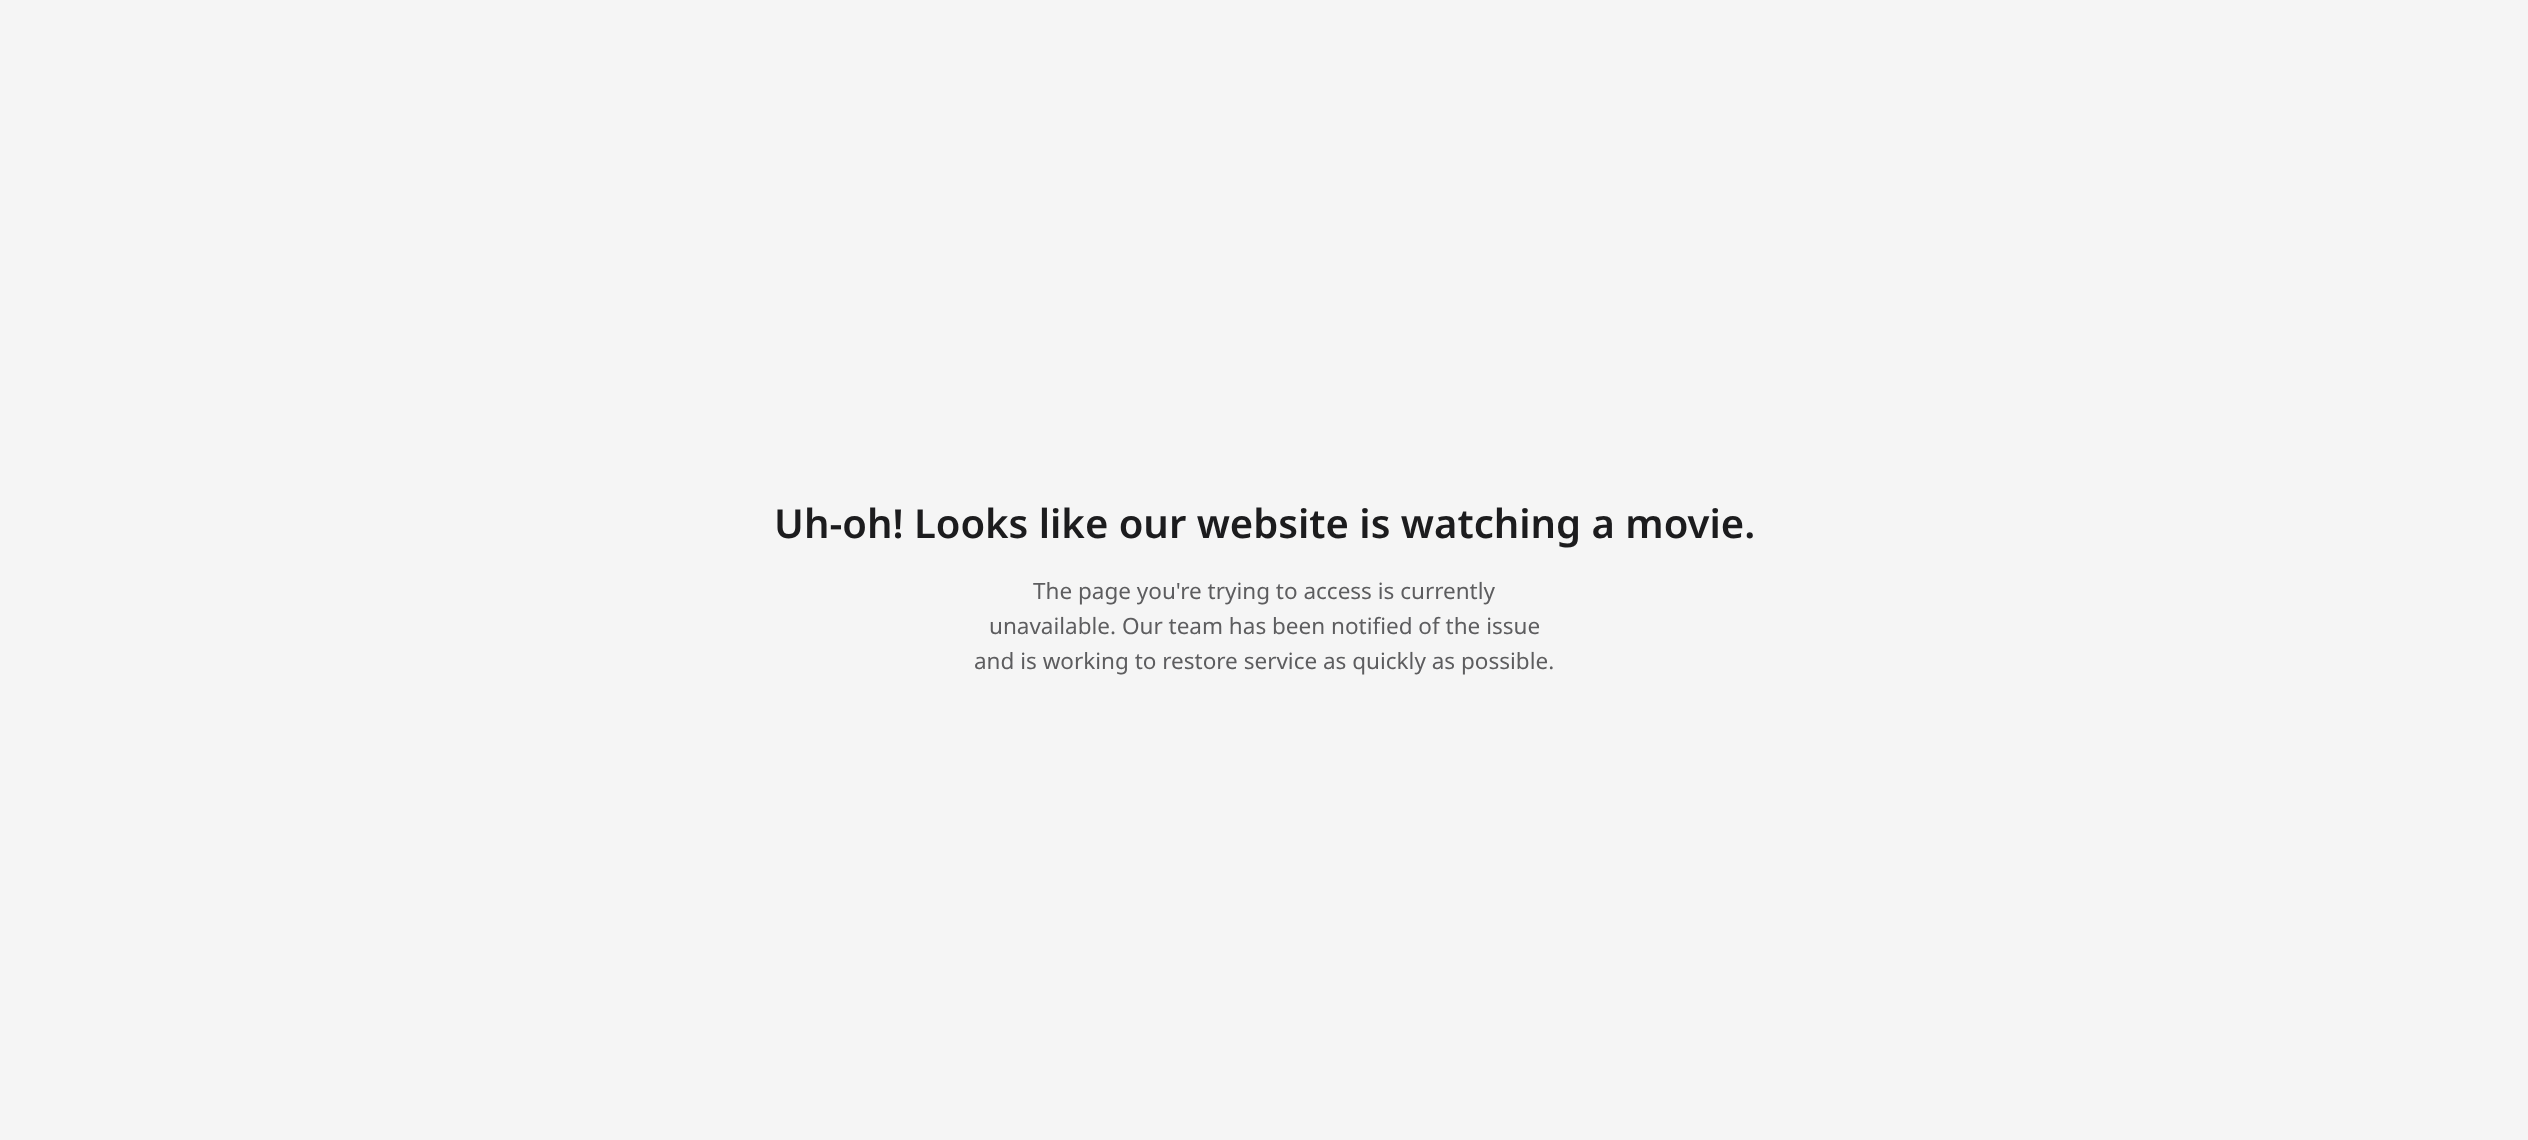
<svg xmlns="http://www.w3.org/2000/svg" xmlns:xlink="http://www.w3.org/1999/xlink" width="2528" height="1140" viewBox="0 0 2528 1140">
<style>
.cls-1{font:600 40px Noto Sans;fill:#1c1c1e}
.cls-2{font:22.5px Noto Sans;fill:#5d5d5f}
</style>
<rect width="100%" height="100%" fill="#f5f5f5"/>
<text class="cls-1" x="774" y="538">Uh-oh! Looks like our website is watching a movie.</text>
<text class="cls-2" x="1033" y="599">The page you're trying to access is currently</text>
<text class="cls-2" x="989" y="634">unavailable. Our team has been notified of the issue</text>
<text class="cls-2" x="974" y="669">and is working to restore service as quickly as possible.</text>
</svg>
